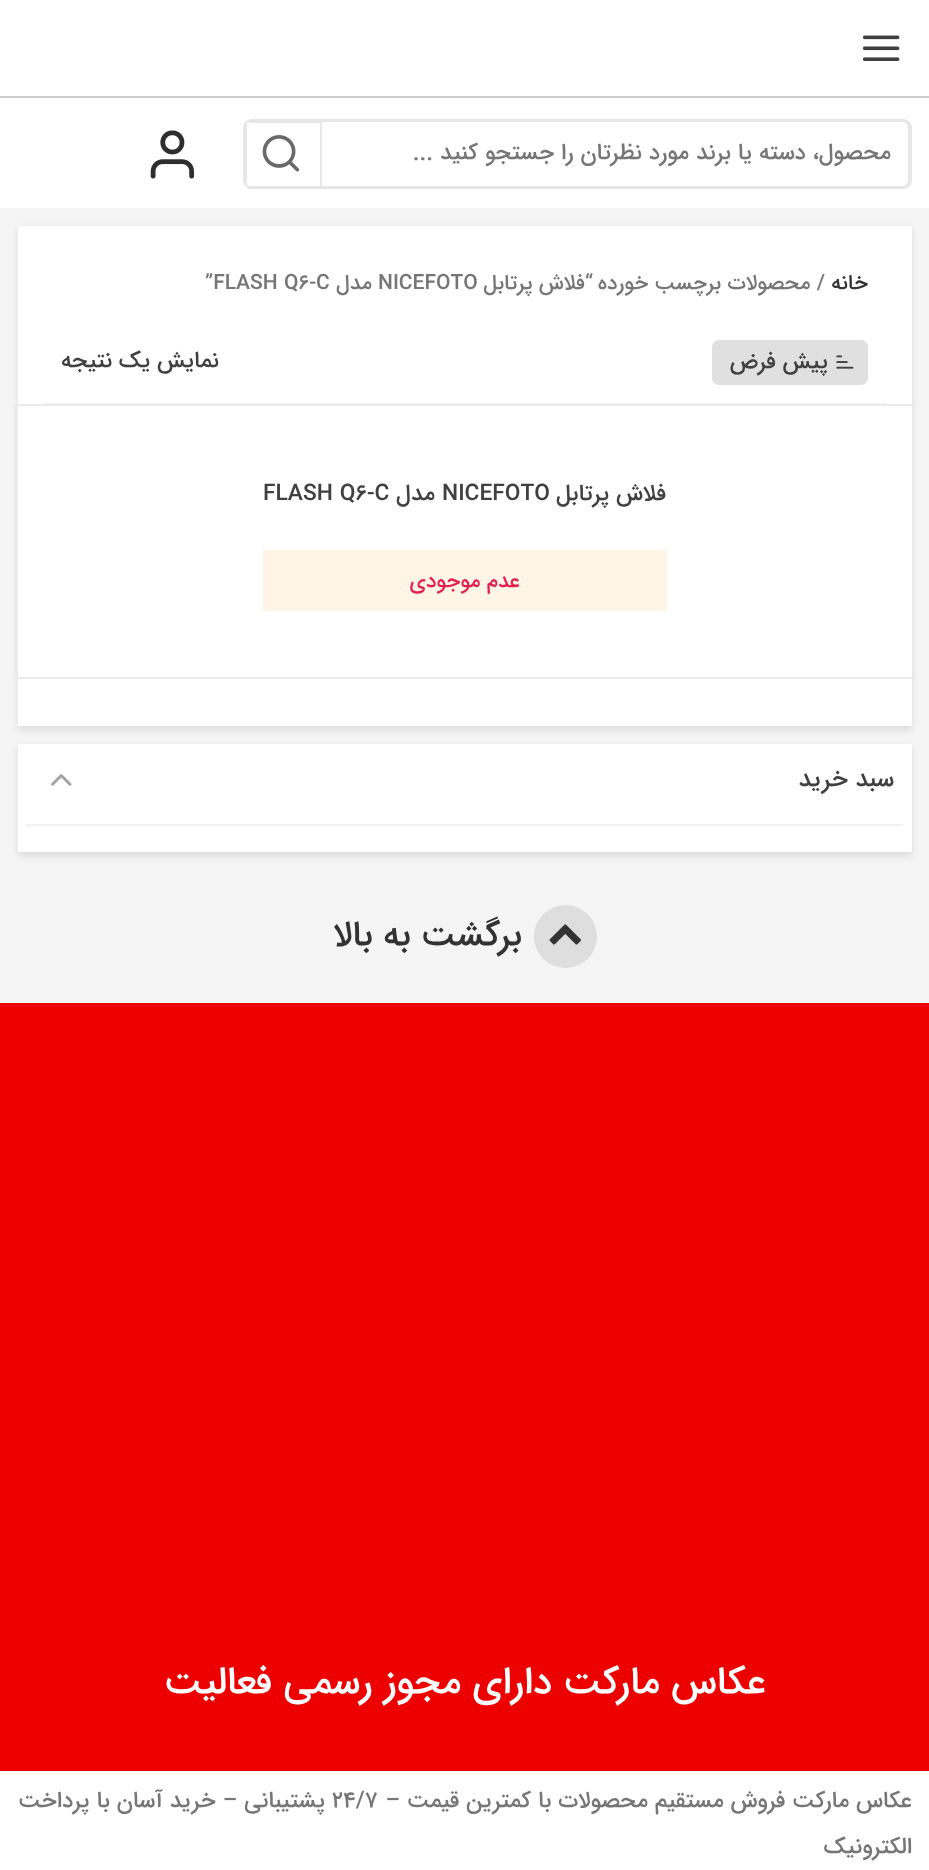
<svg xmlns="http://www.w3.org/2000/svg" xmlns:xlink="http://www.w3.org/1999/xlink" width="929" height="1870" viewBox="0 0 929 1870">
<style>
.cls-1{font:500 22.75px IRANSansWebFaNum;direction:rtl;fill:#767676}
.cls-2{font:500 21px IRANSansWebFaNum;direction:rtl;fill:#333333}
.cls-3{font:500 21px IRANSansWebFaNum;direction:rtl;fill:#767676}
.cls-4{font:500 21px IRANSansWebFaNum;fill:#767676}
.cls-5{font:500 22.75px IRANSansWebFaNum;direction:rtl;fill:#404040}
.cls-6{font:500 22.75px IRANSansWebFaNum;fill:#404040}
.cls-7{font:500 21px IRANSansWebFaNum;direction:rtl;fill:#e31f4f}
.cls-8{font:500 24.5px IRANSansWebFaNum;direction:rtl;fill:#404040}
.cls-9{font:500 35px IRANSansWebFaNum;direction:rtl;fill:#333333}
.cls-10{font:500 38.5px IRANSansWebFaNum;direction:rtl;fill:#ffffff}
.cls-11{font:500 22.75px IRANSansWebFaNum;fill:#767676}
</style>
<rect width="100%" height="100%" fill="#f5f5f5"/>
<rect fill="#ffffff" x="0" y="0" width="929" height="208"/>
<image xlink:href="image0.png" x="862" y="35" width="38" height="26"/>
<rect fill="#cccccc" x="0" y="96" width="929" height="2"/>
<path fill="#e7e7e7" fill-rule="evenodd" d="M322 119H903C908 119 912 123 912 128V180C912 185 908 189 903 189H322ZM322 122H903C906 122 908 125 908 128V180C908 183 906 186 903 186H322Z"/>
<path fill="none" stroke="#e7e7e7" stroke-width="2" d="M252 120H321V188H252C247.5 188 244 184.5 244 180V128C244 123.5 247.5 120 252 120Z"/>
<rect fill="#e7e7e7" x="249" y="121" width="73" height="2"/>
<rect fill="#e7e7e7" x="249" y="186" width="73" height="1"/>
<rect fill="#e7e7e7" x="245" y="124" width="2" height="62"/>
<image xlink:href="image1.png" x="262" y="135" width="38" height="37"/>
<image xlink:href="image2.png" x="150" y="130" width="45" height="49"/>
<rect fill="#000000" fill-opacity="0.1" filter="blur(3.5px)" x="18" y="229" width="894" height="501"/>
<rect fill="#ffffff" x="18" y="226" width="894" height="500"/>
<rect fill="#f2f2f2" x="44" y="403" width="842" height="1"/>
<rect fill="#e0e0e0" x="712" y="340" width="156" height="45" rx="7"/>
<image xlink:href="image3.png" x="836" y="355" width="18" height="14"/>
<rect fill="#fef5e7" x="263" y="550" width="404" height="61"/>
<rect fill="none" stroke="#ebebeb" stroke-width="2" x="15" y="405" width="899" height="273"/>
<rect fill="#000000" fill-opacity="0.1" filter="blur(3.5px)" x="18" y="747" width="894" height="109"/>
<rect fill="#ffffff" x="18" y="744" width="894" height="108"/>
<rect fill="#f2f2f2" x="26" y="824" width="877" height="2"/>
<image xlink:href="image4.png" x="51" y="774" width="21" height="12"/>
<circle fill="#dedede" cx="565.5" cy="936.5" r="31.5"/>
<image xlink:href="image5.png" x="549" y="924" width="32" height="21"/>
<rect fill="#ed0000" x="0" y="1003" width="929" height="768"/>
<rect fill="#ffffff" x="0" y="1771" width="929" height="99"/>
<text class="cls-1" x="891" y="159">محصول، دسته یا برند مورد نظرتان را جستجو کنید ...</text>
<text class="cls-2" x="868" y="289">خانه</text>
<text class="cls-3" x="825" y="289">/ محصولات برچسب خورده</text>
<text class="cls-3" x="593" y="289">“فلاش پرتابل</text>
<text class="cls-4" x="378" y="289">NICEFOTO</text>
<text class="cls-3" x="372" y="289">مدل</text>
<text class="cls-4" x="205" y="289">”FLASH Q6-C</text>
<text class="cls-5" x="828" y="368">پیش فرض</text>
<text class="cls-5" x="219" y="367">نمایش یک نتیجه</text>
<text class="cls-5" x="666" y="500">فلاش پرتابل</text>
<text class="cls-6" x="442" y="500">NICEFOTO</text>
<text class="cls-5" x="435" y="500">مدل</text>
<text class="cls-6" x="263" y="500">FLASH Q6-C</text>
<text class="cls-7" x="520" y="587">عدم موجودی</text>
<text class="cls-8" x="894" y="786">سبد خرید</text>
<text class="cls-9" x="522" y="945">برگشت به بالا</text>
<text class="cls-10" x="766" y="1693">عکاس مارکت دارای مجوز رسمی فعالیت</text>
<text class="cls-1" x="912" y="1807">عکاس مارکت فروش مستقیم محصولات با کمترین قیمت –</text>
<text class="cls-11" x="332" y="1807">24/7</text>
<text class="cls-1" x="325" y="1807">پشتیبانی – خرید آسان با پرداخت</text>
<text class="cls-1" x="912" y="1853">الکترونیک</text>
</svg>
